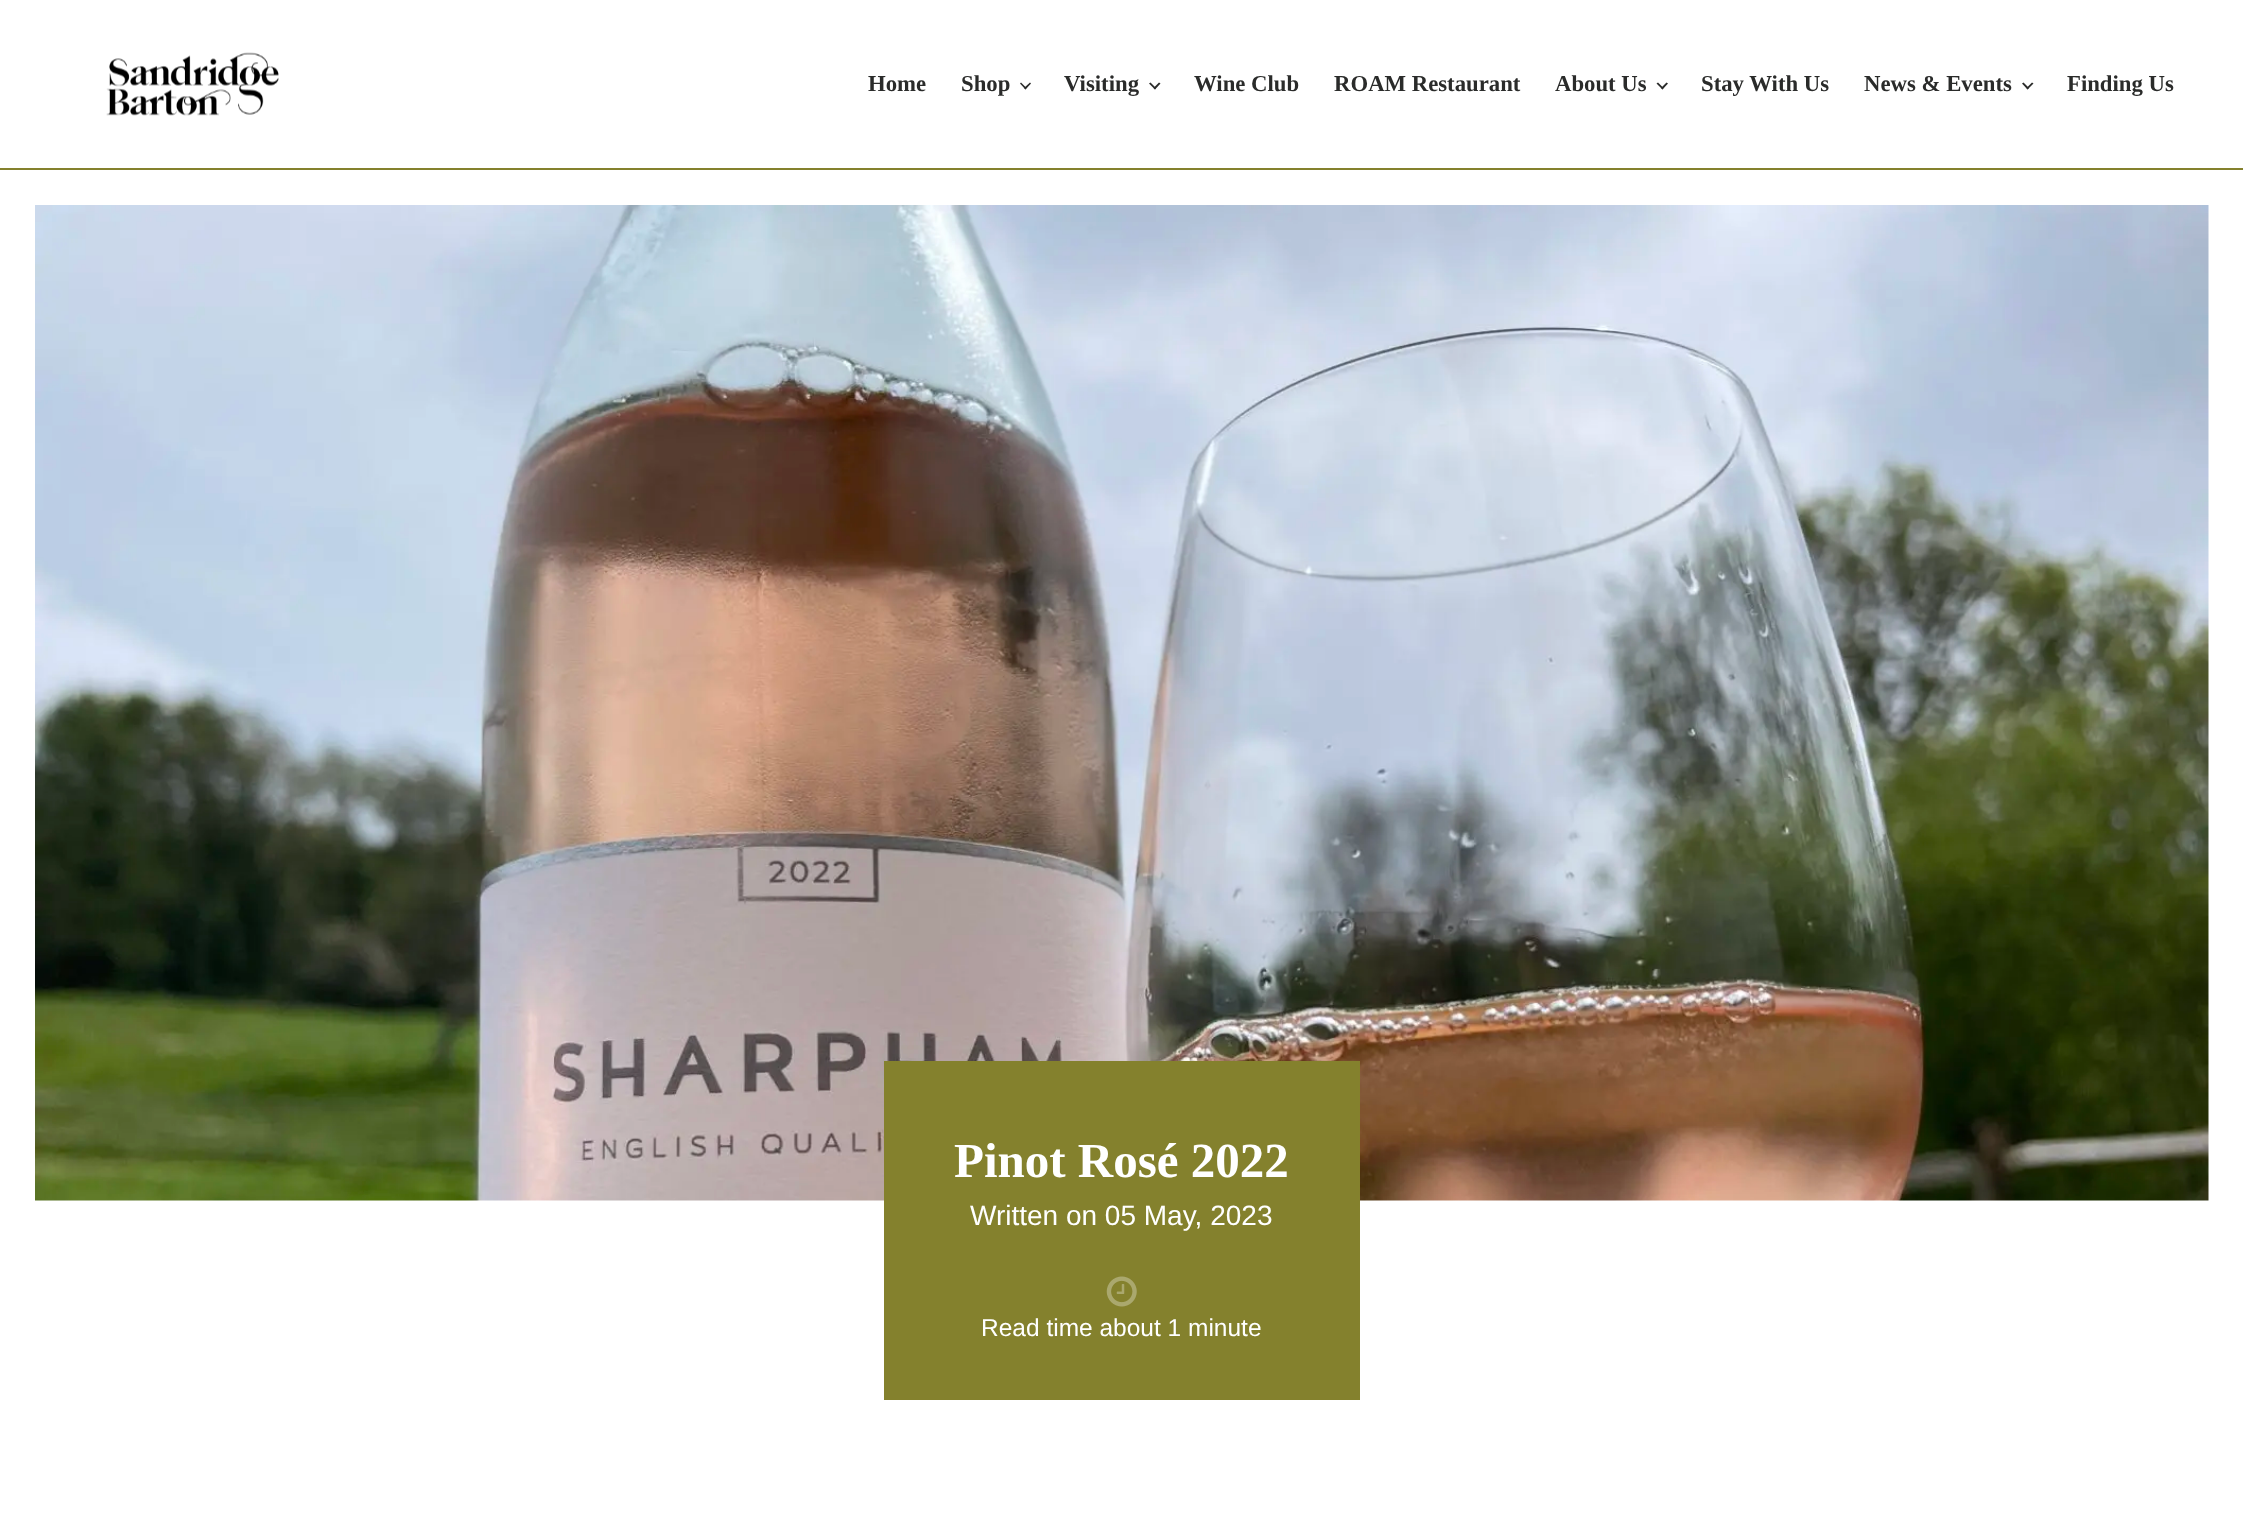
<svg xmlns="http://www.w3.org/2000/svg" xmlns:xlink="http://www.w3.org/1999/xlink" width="2243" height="1522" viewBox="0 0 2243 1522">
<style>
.cls-1{font:bold 22.75px Liberation Serif;fill:#2a2b2a}
.cls-2{font:bold 49px Liberation Serif;fill:#ffffff}
.cls-3{font:28px Liberation Sans;fill:#ffffff}
.cls-4{font:24.5px Liberation Sans;fill:#ffffff}
</style>
<rect width="100%" height="100%" fill="#ffffff"/>
<rect fill="#84812d" x="0" y="168" width="2243" height="2"/>
<image xlink:href="image0.png" x="106" y="52" width="173" height="64"/>
<path fill="#2a2b2a" d="M1031 83.5L1025.5 89.5L1024 88L1030 82.5Z"/>
<path fill="#2a2b2a" d="M1026.5 88L1025.5 89.5L1020 83.5L1021 82.5Z"/>
<path fill="#2a2b2a" d="M1160.5 83.5L1155 89.5L1153.5 88L1159 82.5Z"/>
<path fill="#2a2b2a" d="M1156 88L1155 89.5L1149 83.5L1150.5 82.5Z"/>
<path fill="#2a2b2a" d="M1668 83.5L1662.5 89.5L1661 88L1666.5 82.5Z"/>
<path fill="#2a2b2a" d="M1663.5 88L1662.5 89.5L1656.5 83.5L1658 82.5Z"/>
<path fill="#2a2b2a" d="M2033.5 83.5L2027.5 89.5L2026.5 88L2032 82.5Z"/>
<path fill="#2a2b2a" d="M2029 88L2027.5 89.5L2022 83.5L2023.5 82.5Z"/>
<image xlink:href="image1.png" x="35" y="205" width="2174" height="996"/>
<rect fill="#84812d" x="884" y="1061" width="476" height="339"/>
<image xlink:href="image2.png" x="1106" y="1276" width="31" height="31"/>
<text class="cls-1" x="868" y="91">Home</text>
<text class="cls-1" x="961" y="91">Shop</text>
<text class="cls-1" x="1064" y="91">Visiting</text>
<text class="cls-1" x="1194" y="91">Wine Club</text>
<text class="cls-1" x="1334" y="91">ROAM Restaurant</text>
<text class="cls-1" x="1555" y="91">About Us</text>
<text class="cls-1" x="1701" y="91">Stay With Us</text>
<text class="cls-1" x="1864" y="91">News &amp; Events</text>
<text class="cls-1" x="2067" y="91">Finding Us</text>
<text class="cls-2" x="954" y="1177">Pinot Rosé 2022</text>
<text class="cls-3" x="970" y="1225">Written on 05 May, 2023</text>
<text class="cls-4" x="981" y="1336">Read time about 1 minute</text>
</svg>
